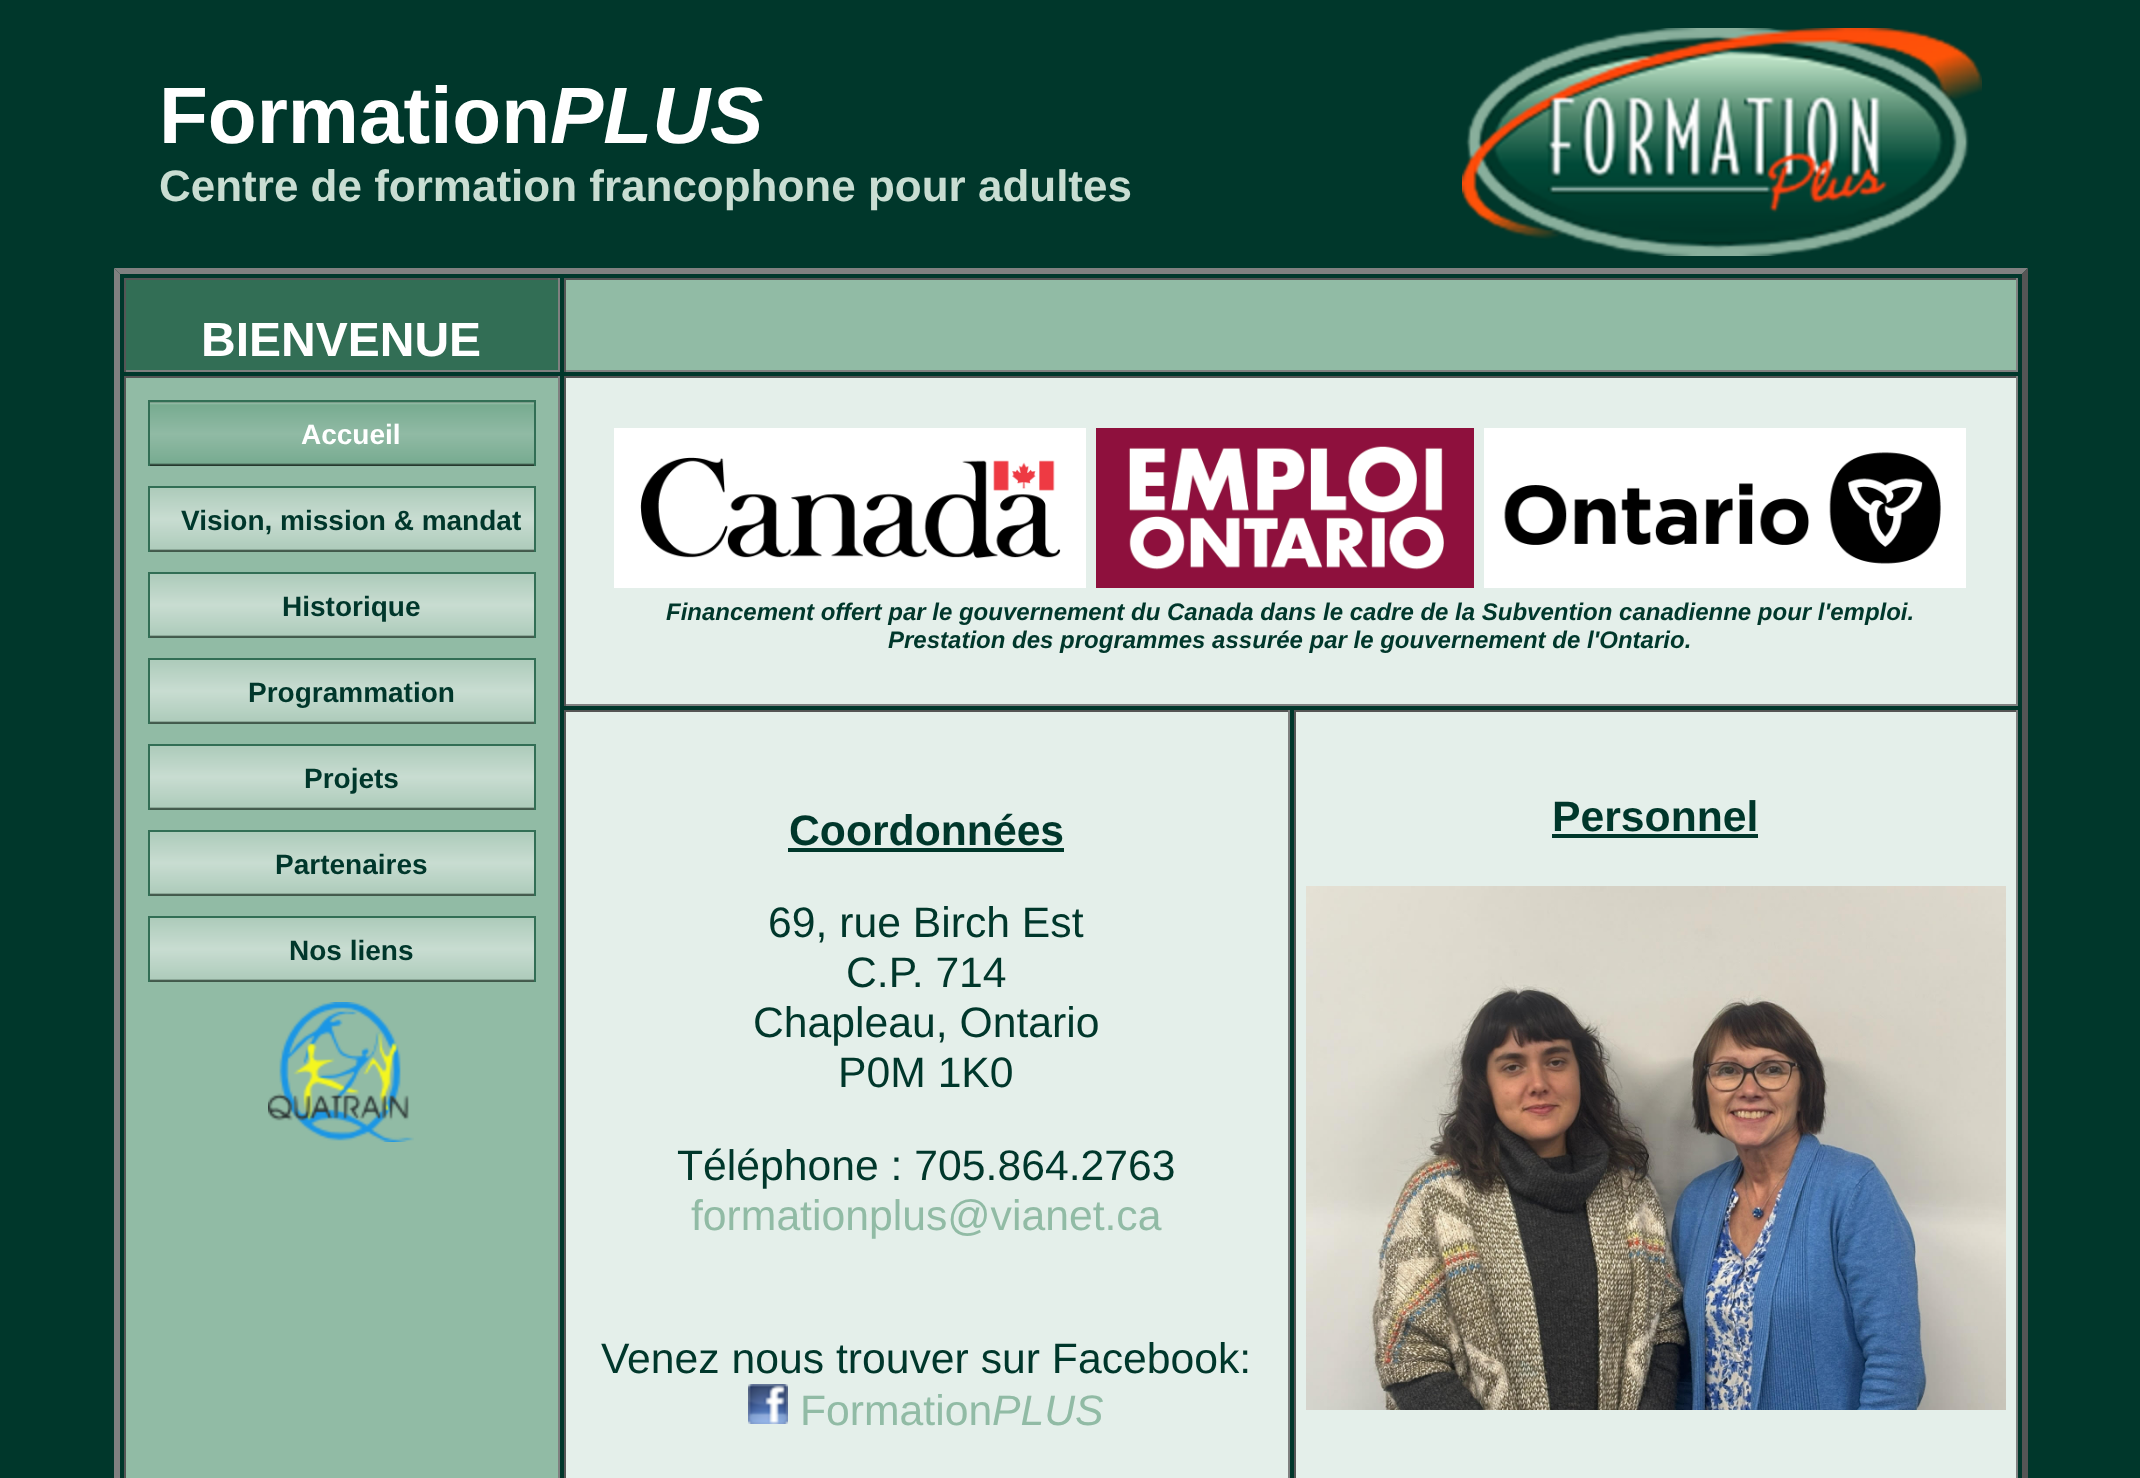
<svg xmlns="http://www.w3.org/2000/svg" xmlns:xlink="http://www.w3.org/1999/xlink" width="2140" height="1478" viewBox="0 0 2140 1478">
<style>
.cls-1{font:bold 80px Liberation Sans;fill:#ffffff}
.cls-2{font:italic bold 80px Liberation Sans;fill:#ffffff}
.cls-3{font:bold 44px Liberation Sans;fill:#c9ddd2}
.cls-4{font:bold 48px Liberation Sans;fill:#ffffff}
.cls-5{font:bold 28px Liberation Sans;fill:#ffffff}
.cls-6{font:bold 28px Liberation Sans;fill:#00372b}
.cls-7{font:italic bold 24px Liberation Sans;fill:#00372b}
.cls-8{font:bold 42.7px Liberation Sans;fill:#00372b}
.cls-9{font:42.7px Liberation Sans;fill:#00372b}
.cls-10{font:42.7px Liberation Sans;fill:#91bba5}
.cls-11{font:italic 42.7px Liberation Sans;fill:#91bba5}
</style>
<rect width="100%" height="100%" fill="#00372b"/>
<image xlink:href="image0.png" x="1462" y="28" width="520" height="228"/>
<path fill="#808080" d="M114 268H2028L2022 274H120Z"/>
<path fill="#555555" d="M2028 268V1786L2022 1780V274Z"/>
<path fill="#808080" d="M114 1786V268L120 274V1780Z"/>
<rect fill="#326e55" x="126" y="280" width="432" height="90"/>
<rect fill="#555555" x="124" y="278" width="436" height="2"/>
<rect fill="#808080" x="558" y="278" width="2" height="94"/>
<rect fill="#808080" x="124" y="370" width="436" height="2"/>
<rect fill="#555555" x="124" y="278" width="2" height="94"/>
<rect fill="#91bba5" x="566" y="280" width="1450" height="90"/>
<rect fill="#555555" x="564" y="278" width="1454" height="2"/>
<rect fill="#808080" x="2016" y="278" width="2" height="94"/>
<rect fill="#808080" x="564" y="370" width="1454" height="2"/>
<rect fill="#555555" x="564" y="278" width="2" height="94"/>
<rect fill="#91bba5" x="126" y="378" width="432" height="1100"/>
<rect fill="#555555" x="124" y="376" width="436" height="2"/>
<rect fill="#808080" x="558" y="376" width="2" height="1102"/>
<rect fill="#555555" x="124" y="376" width="2" height="1102"/>
<rect fill="#326e55" x="148" y="400" width="388" height="2"/>
<rect fill="#326e55" x="534" y="400" width="2" height="66"/>
<rect fill="#326e55" x="148" y="400" width="2" height="66"/>
<image xlink:href="image1.png" x="150" y="402" width="384" height="64"/>
<rect fill="#326e55" x="148" y="486" width="388" height="2"/>
<rect fill="#326e55" x="534" y="486" width="2" height="66"/>
<rect fill="#326e55" x="148" y="486" width="2" height="66"/>
<image xlink:href="image2.png" x="150" y="488" width="384" height="64"/>
<rect fill="#326e55" x="148" y="572" width="388" height="2"/>
<rect fill="#326e55" x="534" y="572" width="2" height="66"/>
<rect fill="#326e55" x="148" y="572" width="2" height="66"/>
<image xlink:href="image2.png" x="150" y="574" width="384" height="64"/>
<rect fill="#326e55" x="148" y="658" width="388" height="2"/>
<rect fill="#326e55" x="534" y="658" width="2" height="66"/>
<rect fill="#326e55" x="148" y="658" width="2" height="66"/>
<image xlink:href="image2.png" x="150" y="660" width="384" height="64"/>
<rect fill="#326e55" x="148" y="744" width="388" height="2"/>
<rect fill="#326e55" x="534" y="744" width="2" height="66"/>
<rect fill="#326e55" x="148" y="744" width="2" height="66"/>
<image xlink:href="image2.png" x="150" y="746" width="384" height="64"/>
<rect fill="#326e55" x="148" y="830" width="388" height="2"/>
<rect fill="#326e55" x="534" y="830" width="2" height="66"/>
<rect fill="#326e55" x="148" y="830" width="2" height="66"/>
<image xlink:href="image2.png" x="150" y="832" width="384" height="64"/>
<rect fill="#326e55" x="148" y="916" width="388" height="2"/>
<rect fill="#326e55" x="534" y="916" width="2" height="66"/>
<rect fill="#326e55" x="148" y="916" width="2" height="66"/>
<image xlink:href="image2.png" x="150" y="918" width="384" height="64"/>
<image xlink:href="image3.png" x="268" y="1002" width="146" height="140"/>
<rect fill="#e4efea" x="566" y="378" width="1450" height="326"/>
<rect fill="#555555" x="564" y="376" width="1454" height="2"/>
<rect fill="#808080" x="2016" y="376" width="2" height="330"/>
<rect fill="#808080" x="564" y="704" width="1454" height="2"/>
<rect fill="#555555" x="564" y="376" width="2" height="330"/>
<image xlink:href="image4.png" x="614" y="428" width="472" height="160"/>
<image xlink:href="image5.png" x="1096" y="428" width="378" height="160"/>
<image xlink:href="image6.png" x="1484" y="428" width="482" height="160"/>
<rect fill="#e4efea" x="566" y="712" width="722" height="766"/>
<rect fill="#555555" x="564" y="710" width="726" height="2"/>
<rect fill="#808080" x="1288" y="710" width="2" height="768"/>
<rect fill="#555555" x="564" y="710" width="2" height="768"/>
<rect fill="#00372b" x="788" y="848" width="276" height="4"/>
<image xlink:href="image7.png" x="748" y="1384" width="40" height="40"/>
<rect fill="#e4efea" x="1296" y="712" width="720" height="766"/>
<rect fill="#555555" x="1294" y="710" width="724" height="2"/>
<rect fill="#808080" x="2016" y="710" width="2" height="768"/>
<rect fill="#555555" x="1294" y="710" width="2" height="768"/>
<rect fill="#00372b" x="1552" y="834" width="206" height="4"/>
<image xlink:href="image8.png" x="1306" y="886" width="700" height="524"/>
<text class="cls-1" x="159" y="143">Formation</text>
<text class="cls-2" x="550" y="143">PLUS</text>
<text class="cls-3" x="159" y="201">Centre de formation francophone pour adultes</text>
<text class="cls-4" x="201" y="356">BIENVENUE</text>
<text class="cls-5" x="301" y="444">Accueil</text>
<text class="cls-6" x="181" y="530">Vision, mission &amp; mandat</text>
<text class="cls-6" x="282" y="616">Historique</text>
<text class="cls-6" x="248" y="702">Programmation</text>
<text class="cls-6" x="304" y="788">Projets</text>
<text class="cls-6" x="275" y="874">Partenaires</text>
<text class="cls-6" x="289" y="960">Nos liens</text>
<text class="cls-7" x="666" y="620">Financement offert par le gouvernement du Canada dans le cadre de la Subvention canadienne pour l'emploi.</text>
<text class="cls-7" x="888" y="648">Prestation des programmes assurée par le gouvernement de l'Ontario.</text>
<text class="cls-8" x="789" y="845">Coordonnées</text>
<text class="cls-9" x="768" y="937">69, rue Birch Est</text>
<text class="cls-9" x="846" y="987">C.P. 714</text>
<text class="cls-9" x="753" y="1037">Chapleau, Ontario</text>
<text class="cls-9" x="838" y="1087">P0M 1K0</text>
<text class="cls-9" x="677" y="1180">Téléphone : 705.864.2763</text>
<text class="cls-10" x="691" y="1230">formationplus@vianet.ca</text>
<text class="cls-9" x="601" y="1373">Venez nous trouver sur Facebook:</text>
<text class="cls-10" x="800" y="1425">Formation</text>
<text class="cls-11" x="992" y="1425">PLUS</text>
<text class="cls-8" x="1552" y="831">Personnel</text>
</svg>
